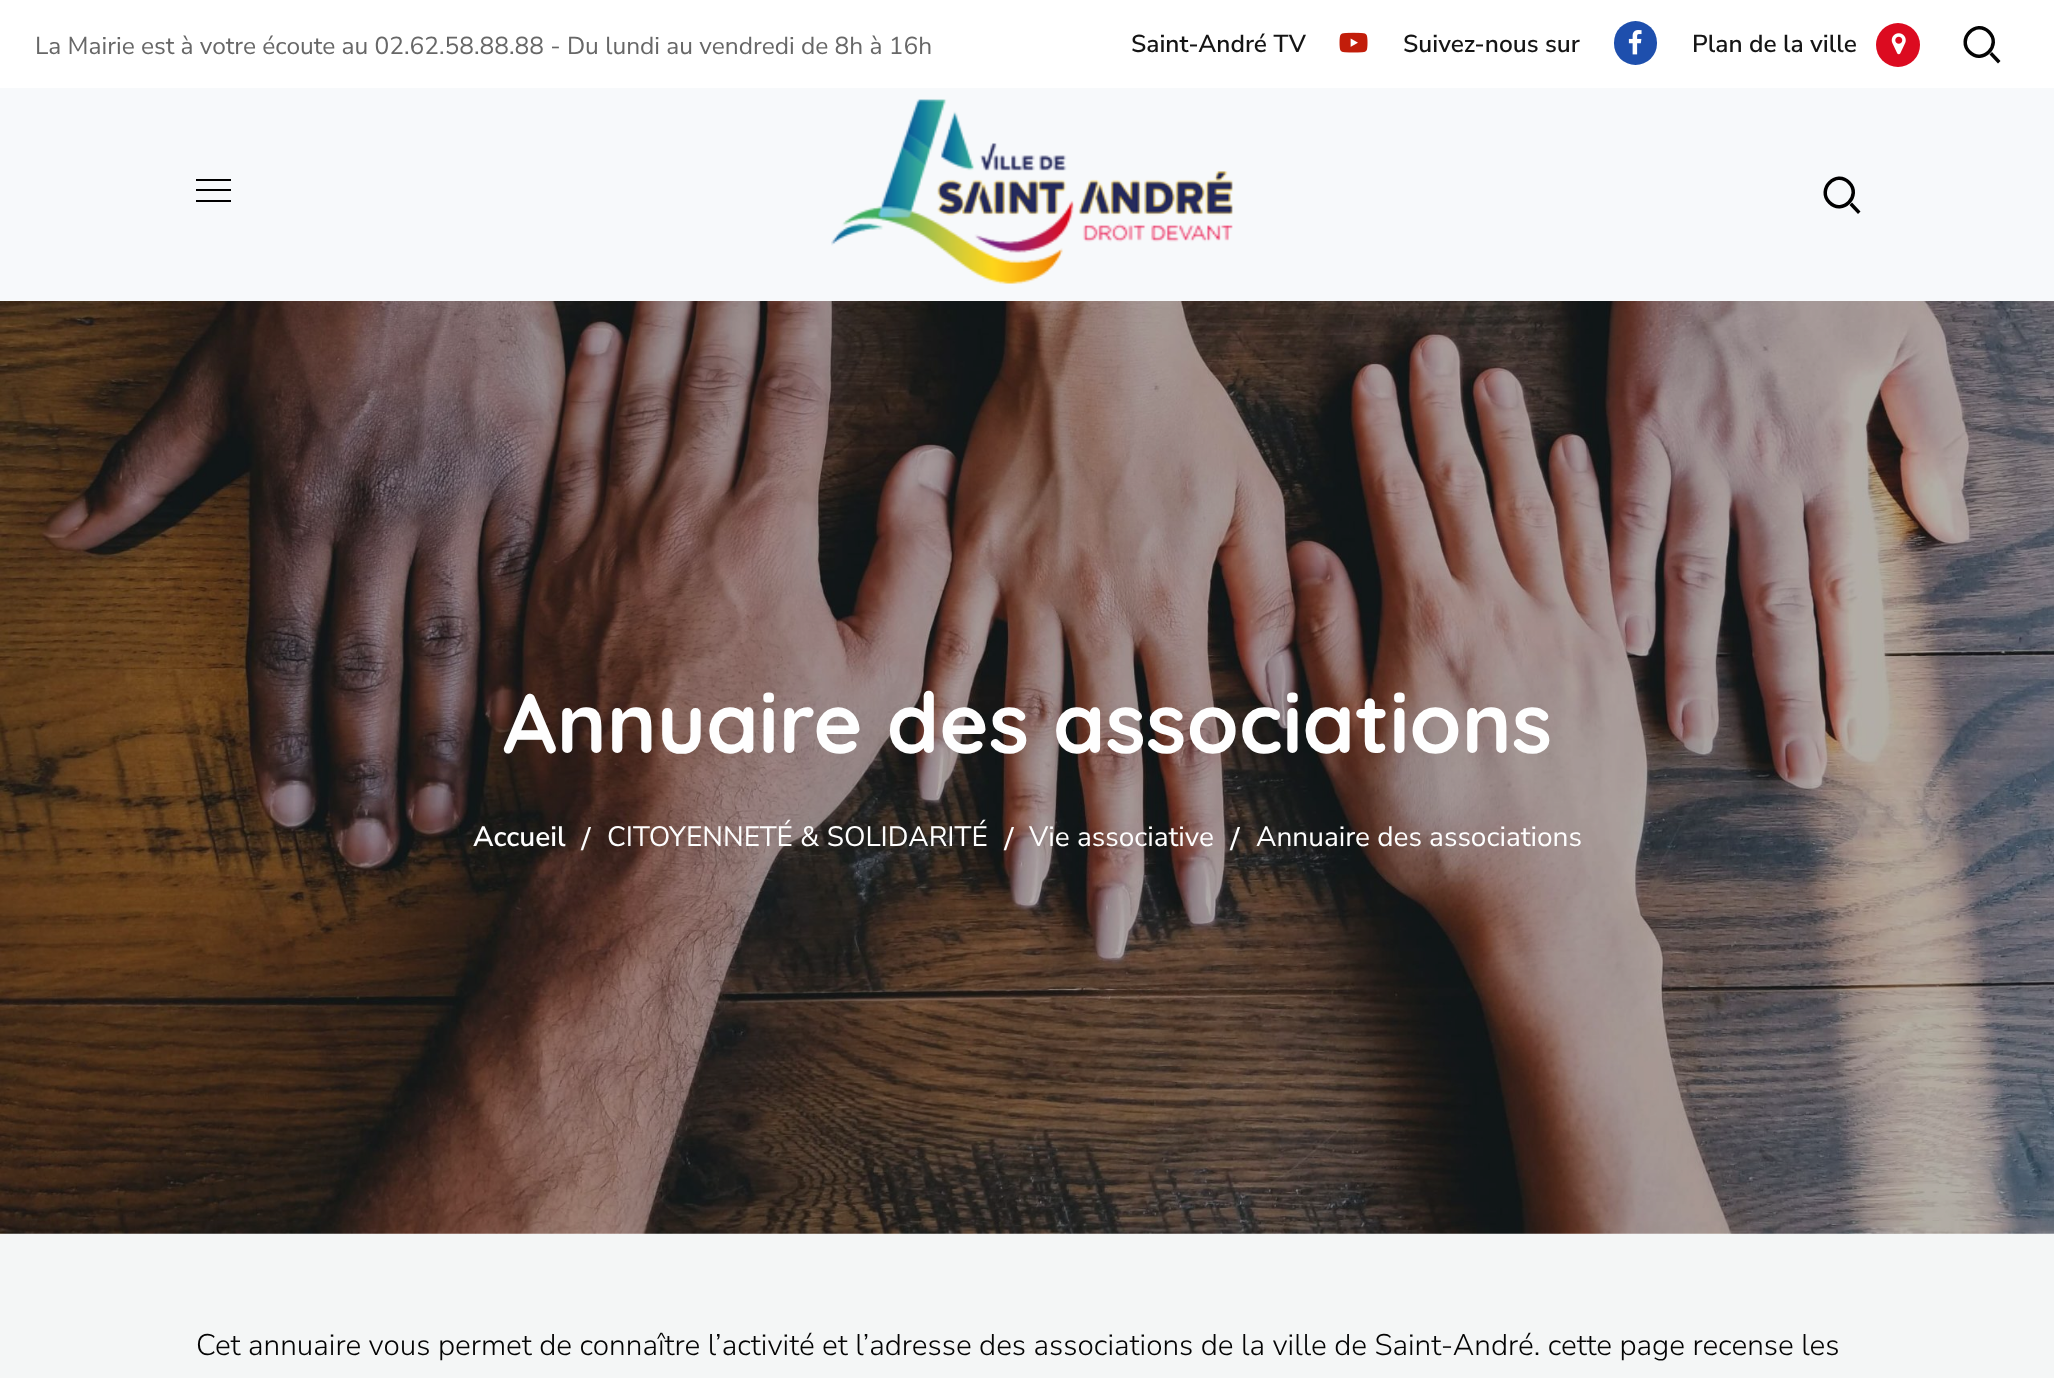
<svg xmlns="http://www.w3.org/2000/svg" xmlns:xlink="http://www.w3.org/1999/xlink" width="2054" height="1378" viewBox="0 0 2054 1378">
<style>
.cls-1{font:24.5px Nunito Sans;fill:#676767}
.cls-2{font:600 24.5px Nunito Sans;fill:#151515}
.cls-3{font:bold 84px Quicksand;fill:#fefefe}
.cls-4{font:600 28px Nunito Sans;fill:#fefefe}
.cls-5{font:bold 35px Liberation Serif;fill:#fefefe}
.cls-6{font:28px Nunito Sans;fill:#fefefe}
.cls-7{font:300 29.75px Nunito Sans;fill:#040404}
</style>
<rect width="100%" height="100%" fill="#ffffff"/>
<image xlink:href="image0.png" x="1339" y="32" width="29" height="21"/>
<rect fill="#1e4fad" x="1614" y="21" width="43" height="44" rx="21.5"/>
<image xlink:href="image1.png" x="1628" y="30" width="14" height="25"/>
<circle fill="#dc0b20" cx="1898" cy="45" r="22"/>
<image xlink:href="image2.png" x="1891" y="33" width="15" height="22"/>
<path fill="none" stroke="#040404" stroke-width="3.5" d="M1989 32C2002 45 1982.5 65 1969.5 52C1956.5 39 1976 19 1989 32Z"/>
<path fill="#040404" d="M1989.5 54.5L1992 52L2000.5 61L1998 63.5Z"/>
<rect fill="#f7f9fb" x="0" y="88" width="2054" height="213"/>
<rect fill="#000000" x="196" y="179" width="35" height="2"/>
<rect fill="#000000" x="196" y="189" width="35" height="2"/>
<rect fill="#000000" x="196" y="200" width="35" height="2"/>
<image xlink:href="image3.png" x="831" y="99" width="402" height="185"/>
<path fill="none" stroke="#000000" stroke-width="3.5" d="M1849 182.5C1862 195.5 1842.5 215.5 1829.5 202.5C1816.5 189.5 1836 169.5 1849 182.5Z"/>
<path fill="#000000" d="M1849.5 205L1852 202.5L1860.5 211.5L1858 214Z"/>
<image xlink:href="image4.png" x="0" y="301" width="2054" height="933"/>
<rect fill="#f4f6f6" x="0" y="1234" width="2054" height="144"/>
<text class="cls-1" x="35" y="54">La Mairie est à votre écoute au 02.62.58.88.88 - Du lundi au vendredi de 8h à 16h</text>
<text class="cls-2" x="1131" y="52">Saint-André TV</text>
<text class="cls-2" x="1403" y="52">Suivez-nous sur</text>
<text class="cls-2" x="1692" y="52">Plan de la ville</text>
<text class="cls-3" x="503" y="753">Annuaire des associations</text>
<text class="cls-4" x="473" y="846">Accueil</text>
<text class="cls-5" x="581" y="850">/</text>
<text class="cls-6" x="607" y="846">CITOYENNETÉ &amp; SOLIDARITÉ</text>
<text class="cls-5" x="1004" y="850">/</text>
<text class="cls-6" x="1029" y="846">Vie associative</text>
<text class="cls-5" x="1230" y="850">/</text>
<text class="cls-6" x="1256" y="846">Annuaire des associations</text>
<text class="cls-7" x="196" y="1355">Cet annuaire vous permet de connaître l’activité et l’adresse des associations de la ville de Saint-André. cette page recense les</text>
</svg>
